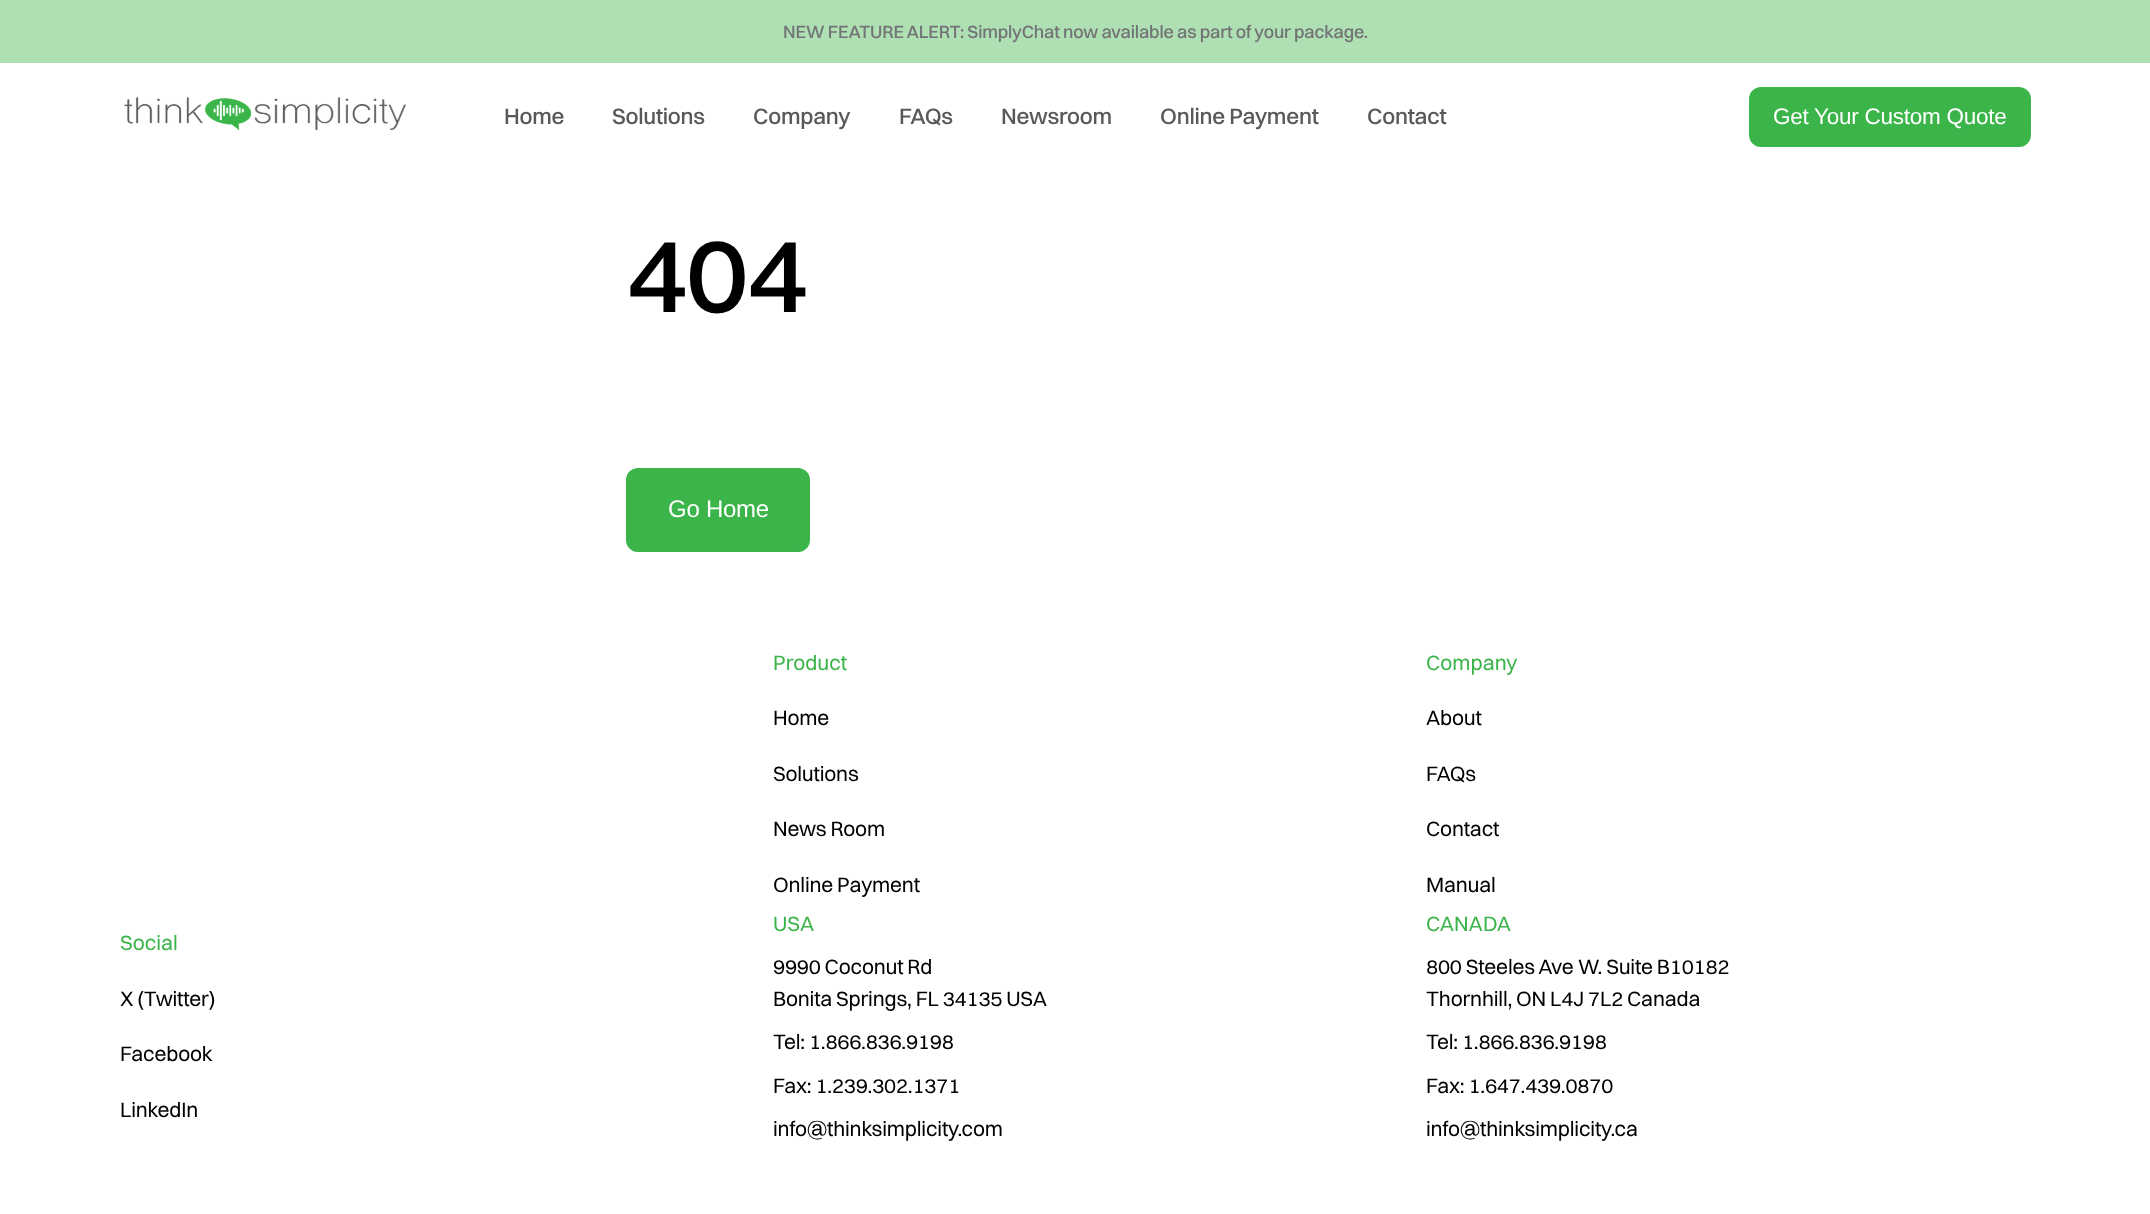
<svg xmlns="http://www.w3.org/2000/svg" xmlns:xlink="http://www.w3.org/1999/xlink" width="2150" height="1214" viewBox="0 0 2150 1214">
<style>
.cls-1{font:500 18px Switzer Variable;letter-spacing:-0.18px;fill:#737475}
.cls-2{font:500 22.5px Switzer Variable;letter-spacing:-0.25px;fill:#58595b}
.cls-3{font:22.5px Liberation Sans;letter-spacing:-0.25px;fill:#ffffff}
.cls-4{font:500 108px Switzer Variable;letter-spacing:-2px;fill:#000000}
.cls-5{font:24px Liberation Sans;letter-spacing:-0.25px;fill:#ffffff}
.cls-6{font:21px Switzer Variable;fill:#3bb549}
.cls-7{font:21px Switzer Variable;letter-spacing:-0.2px;fill:#000000}
</style>
<rect width="100%" height="100%" fill="#ffffff"/>
<rect fill="#afe0b4" x="0" y="0" width="2150" height="63"/>
<image xlink:href="image0.png" x="124" y="97" width="282" height="34"/>
<rect fill="#3bb549" x="1749" y="87" width="282" height="60" rx="12"/>
<rect fill="#3bb549" x="626" y="468" width="184" height="84" rx="12"/>
<text class="cls-1" x="783" y="38">NEW FEATURE ALERT: SimplyChat now available as part of your package.</text>
<text class="cls-2" x="504" y="124">Home</text>
<text class="cls-2" x="612" y="124">Solutions</text>
<text class="cls-2" x="753" y="124">Company</text>
<text class="cls-2" x="899" y="124">FAQs</text>
<text class="cls-2" x="1001" y="124">Newsroom</text>
<text class="cls-2" x="1160" y="124">Online Payment</text>
<text class="cls-2" x="1367" y="124">Contact</text>
<text class="cls-3" x="1773" y="124">Get Your Custom Quote</text>
<text class="cls-4" x="626" y="312">404</text>
<text class="cls-5" x="668" y="517">Go Home</text>
<text class="cls-6" x="773" y="670">Product</text>
<text class="cls-7" x="773" y="725">Home</text>
<text class="cls-7" x="773" y="781">Solutions</text>
<text class="cls-7" x="773" y="836">News Room</text>
<text class="cls-7" x="773" y="892">Online Payment</text>
<text class="cls-6" x="1426" y="670">Company</text>
<text class="cls-7" x="1426" y="725">About</text>
<text class="cls-7" x="1426" y="781">FAQs</text>
<text class="cls-7" x="1426" y="836">Contact</text>
<text class="cls-7" x="1426" y="892">Manual</text>
<text class="cls-6" x="120" y="950">Social</text>
<text class="cls-7" x="120" y="1006">X (Twitter)</text>
<text class="cls-7" x="120" y="1061">Facebook</text>
<text class="cls-7" x="120" y="1117">LinkedIn</text>
<text class="cls-6" x="773" y="931">USA</text>
<text class="cls-7"><tspan x="773" y="974">9990 Coconut Rd</tspan><tspan x="773" y="1006">Bonita Springs, FL 34135 USA</tspan></text>
<text class="cls-7" x="773" y="1049">Tel: 1.866.836.9198</text>
<text class="cls-7" x="773" y="1093">Fax: 1.239.302.1371</text>
<text class="cls-7" x="773" y="1136">info@thinksimplicity.com</text>
<text class="cls-6" x="1426" y="931">CANADA</text>
<text class="cls-7"><tspan x="1426" y="974">800 Steeles Ave W. Suite B10182</tspan><tspan x="1426" y="1006">Thornhill, ON L4J 7L2 Canada</tspan></text>
<text class="cls-7" x="1426" y="1049">Tel: 1.866.836.9198</text>
<text class="cls-7" x="1426" y="1093">Fax: 1.647.439.0870</text>
<text class="cls-7" x="1426" y="1136">info@thinksimplicity.ca</text>
</svg>
